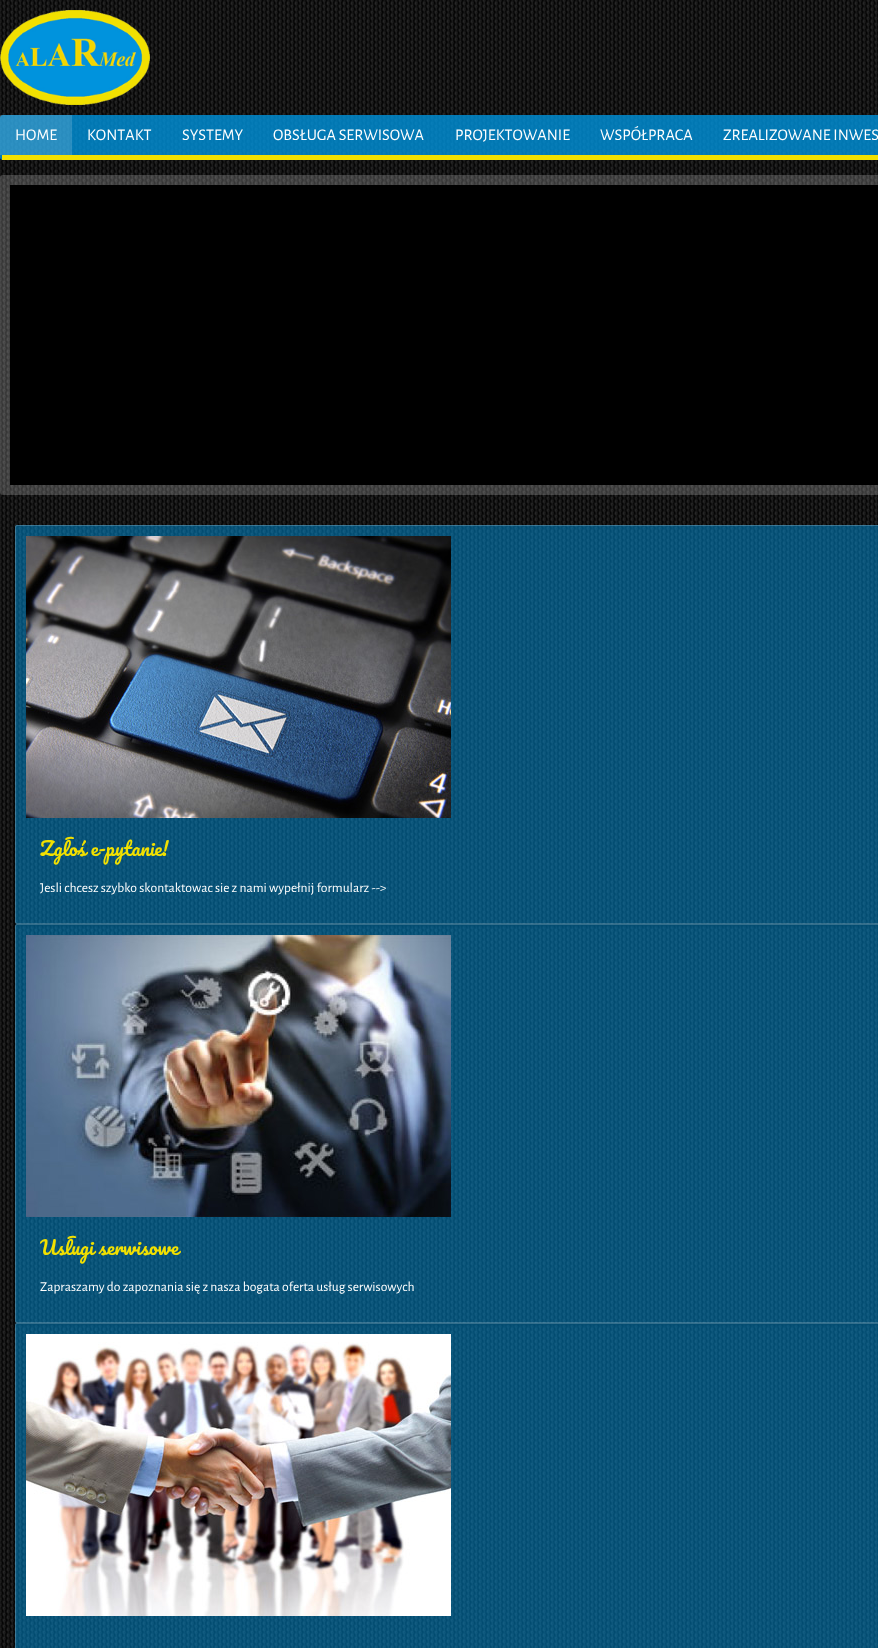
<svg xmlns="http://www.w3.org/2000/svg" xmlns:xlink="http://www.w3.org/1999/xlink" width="878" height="1648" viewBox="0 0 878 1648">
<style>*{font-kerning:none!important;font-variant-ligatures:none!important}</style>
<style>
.cls-1{font:16.25px Alegreya Sans;fill:#ffffff}
.cls-2{font:19px Pacifico;fill:#f2e000}
.cls-3{font:13.6px Alegreya Sans;fill:#ffffff}
</style>
<defs>
<clipPath id="clip1"><path d="M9 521H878V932H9ZM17 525H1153C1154 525 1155 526 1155 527V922C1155 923 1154 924 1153 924H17C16 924 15 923 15 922V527C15 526 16 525 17 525Z" clip-rule="evenodd"/></clipPath>
<clipPath id="clip2"><path d="M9 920H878V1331H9ZM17 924H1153C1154 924 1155 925 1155 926V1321C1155 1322 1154 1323 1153 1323H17C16 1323 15 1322 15 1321V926C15 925 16 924 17 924Z" clip-rule="evenodd"/></clipPath>
</defs>
<rect width="100%" height="100%" fill="#ffffff"/>
<image xlink:href="image0.png" x="0" y="0" width="878" height="1648"/>
<image xlink:href="image1.png" x="0" y="10" width="150" height="95"/>
<rect fill="#0093dd" fill-opacity="0.8" x="0" y="115" width="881" height="45" rx="3"/>
<rect fill="#f2e000" x="2" y="155" width="876" height="5"/>
<rect fill="#ffffff" fill-opacity="0.16" x="0" y="115" width="72" height="40"/>
<rect fill="#ffffff" fill-opacity="0.2" x="0" y="175" width="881" height="320" rx="3"/>
<rect fill="#000000" x="10" y="185" width="868" height="300"/>
<g clip-path="url(#clip1)">
<rect fill="#000000" filter="blur(1.5px)" x="15" y="527" width="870" height="399" rx="2"/>
</g>
<rect fill="#0093dd" fill-opacity="0.5" x="15" y="525" width="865" height="399" rx="2"/>
<rect fill="none" stroke="#ffffff" stroke-opacity="0.2" x="15.5" y="525.5" width="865" height="398" rx="1.5"/>
<image xlink:href="image2.png" x="26" y="536" width="425" height="282"/>
<g clip-path="url(#clip2)">
<rect fill="#000000" filter="blur(1.5px)" x="15" y="926" width="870" height="399" rx="2"/>
</g>
<rect fill="#0093dd" fill-opacity="0.5" x="15" y="924" width="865" height="399" rx="2"/>
<rect fill="none" stroke="#ffffff" stroke-opacity="0.2" x="15.5" y="924.5" width="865" height="398" rx="1.5"/>
<image xlink:href="image3.png" x="26" y="935" width="425" height="282"/>
<rect fill="#0093dd" fill-opacity="0.5" x="15" y="1323" width="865" height="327" rx="2"/>
<rect fill="none" stroke="#ffffff" stroke-opacity="0.2" x="15.5" y="1323.5" width="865" height="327" rx="1.5"/>
<image xlink:href="image4.png" x="26" y="1334" width="425" height="282"/>
<text class="cls-1" x="15" y="140">HOME</text>
<text class="cls-1" x="87" y="140">KONTAKT</text>
<text class="cls-1" x="182" y="140">SYSTEMY</text>
<text class="cls-1" x="273" y="140">OBSŁUGA SERWISOWA</text>
<text class="cls-1" x="455" y="140">PROJEKTOWANIE</text>
<text class="cls-1" x="600" y="140">WSPÓŁPRACA</text>
<text class="cls-1" x="723" y="140">ZREALIZOWANE INWES</text>
<text class="cls-2" x="40" y="856">Zgłoś e-pytanie!</text>
<text class="cls-3" x="40" y="892">Jesli chcesz szybko skontaktowac sie z nami wypełnij formularz --&gt;</text>
<text class="cls-2" x="40" y="1255">Usługi serwisowe</text>
<text class="cls-3" x="40" y="1291">Zapraszamy do zapoznania się z nasza bogata oferta usług serwisowych</text>
</svg>
